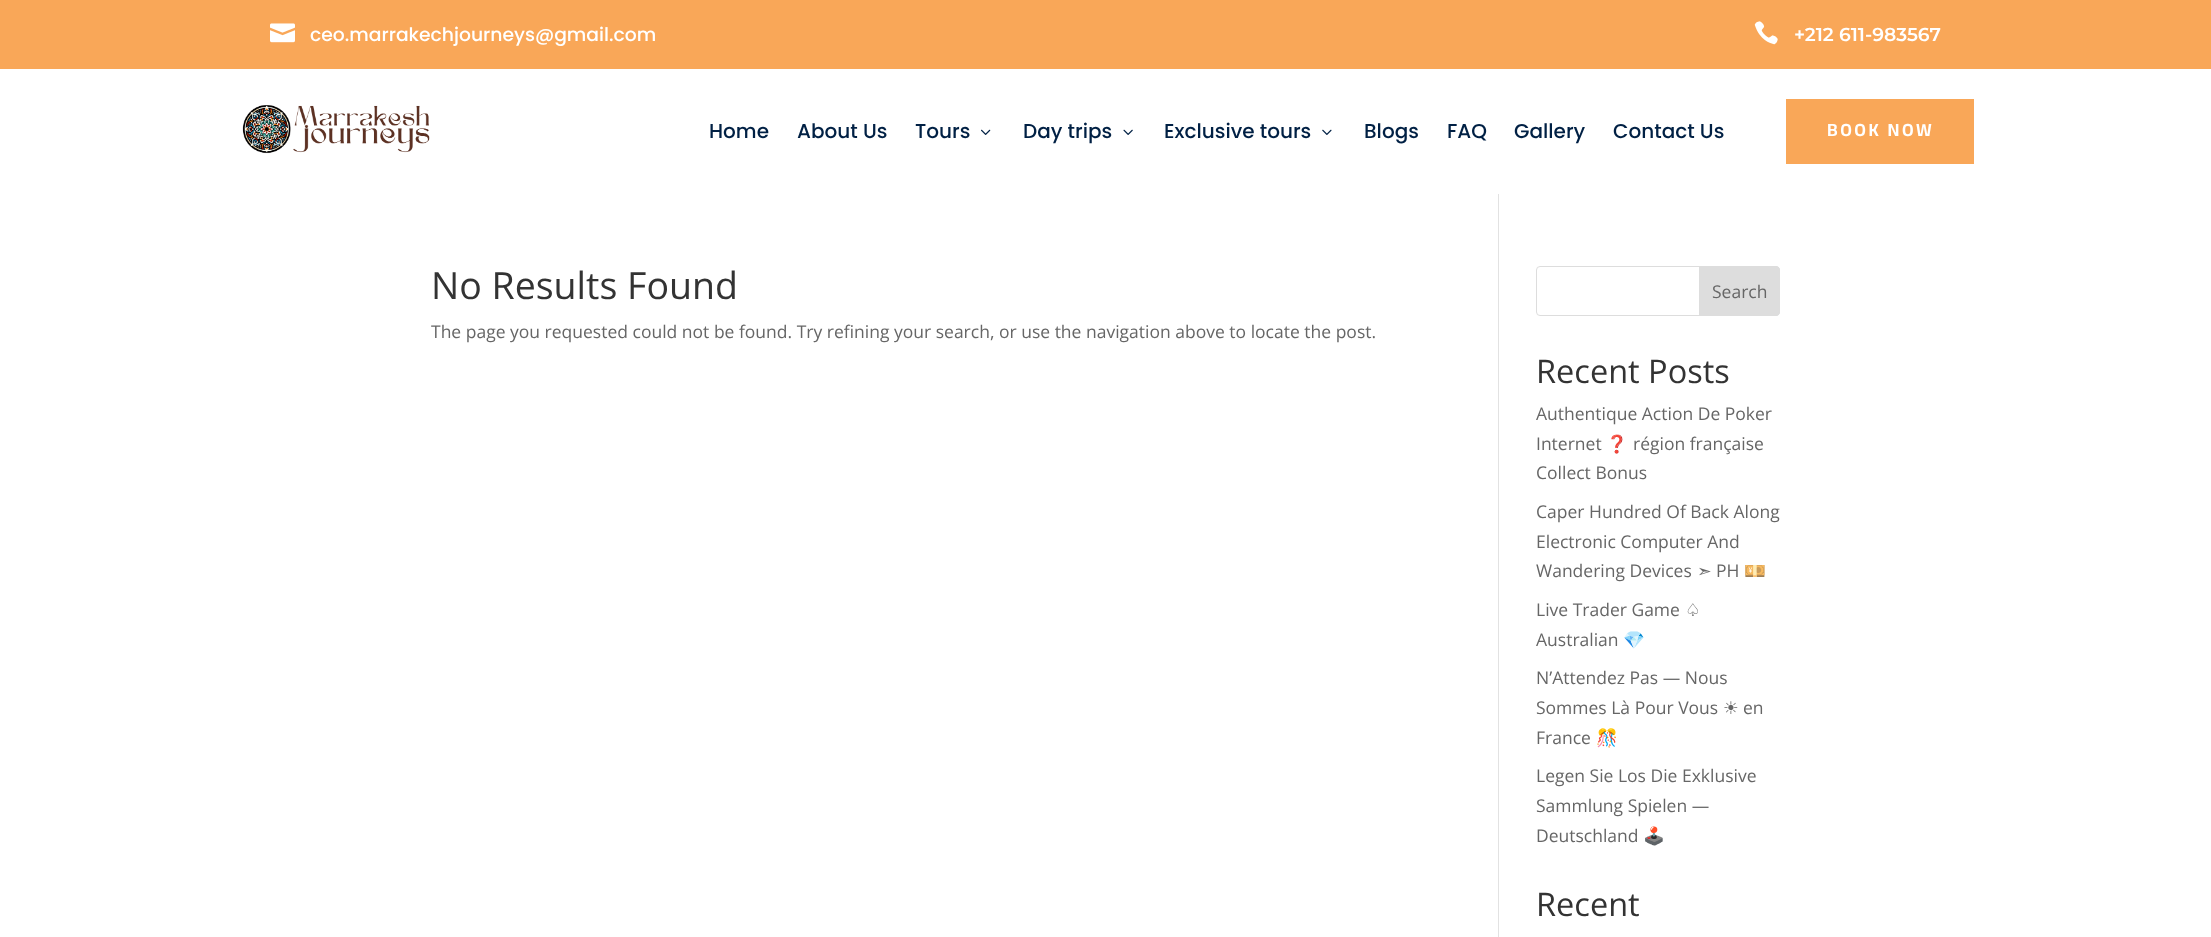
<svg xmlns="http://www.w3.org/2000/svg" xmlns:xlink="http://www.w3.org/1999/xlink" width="2211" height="937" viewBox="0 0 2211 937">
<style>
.cls-1{font:500 18.75px Poppins;fill:#ffffff}
.cls-2{font:100 18.75px Montserrat;fill:#ffffff}
.cls-3{font:500 20px Poppins;fill:#002044}
.cls-4{font:bold 17.5px Cairo;letter-spacing:2.5px;fill:#ffffff}
.cls-5{font:37.5px Open Sans;fill:#333333}
.cls-6{font:17.5px Open Sans;fill:#666666}
.cls-7{font:32.5px Open Sans;fill:#333333}
.cls-8{font:17.5px Noto Color Emoji;fill:#666666}
.cls-9{font:17.5px DejaVu Sans;fill:#666666}
</style>
<rect width="100%" height="100%" fill="#ffffff"/>
<rect fill="#f9a758" x="0" y="0" width="2211" height="69"/>
<image xlink:href="image0.png" x="270" y="23" width="25" height="20"/>
<image xlink:href="image1.png" x="1754" y="21" width="24" height="24"/>
<image xlink:href="image2.png" x="242" y="105" width="188" height="49"/>
<image xlink:href="image3.png" x="981" y="129" width="10" height="6"/>
<image xlink:href="image4.png" x="1123" y="129" width="10" height="6"/>
<image xlink:href="image5.png" x="1322" y="129" width="10" height="6"/>
<rect fill="#f9a758" x="1786" y="99" width="188" height="65"/>
<rect fill="#e2e2e2" x="1498" y="194" width="1" height="743"/>
<rect fill="none" stroke="#dddddd" x="1536.5" y="266.5" width="243" height="49" rx="3.5"/>
<path fill="#dddddd" stroke="#dddddd" d="M1699.5 266.5H1776C1778 266.5 1779.5 268 1779.5 270V312C1779.5 314 1778 315.5 1776 315.5H1699.5Z"/>
<text class="cls-1" x="310" y="41">ceo.marrakechjourneys@gmail.com</text>
<text class="cls-2" x="1794" y="41">+212 611-983567</text>
<text class="cls-3" x="709" y="138">Home</text>
<text class="cls-3" x="797" y="138">About Us</text>
<text class="cls-3" x="915" y="138">Tours</text>
<text class="cls-3" x="1023" y="138">Day trips</text>
<text class="cls-3" x="1164" y="138">Exclusive tours</text>
<text class="cls-3" x="1364" y="138">Blogs</text>
<text class="cls-3" x="1447" y="138">FAQ</text>
<text class="cls-3" x="1514" y="138">Gallery</text>
<text class="cls-3" x="1613" y="138">Contact Us</text>
<text class="cls-4" x="1827" y="136">BOOK NOW</text>
<text class="cls-5" x="431" y="299">No Results Found</text>
<text class="cls-6" x="431" y="338">The page you requested could not be found. Try refining your search, or use the navigation above to locate the post.</text>
<text class="cls-6" x="1712" y="298">Search</text>
<text class="cls-7" x="1536" y="383">Recent Posts</text>
<text class="cls-6"><tspan x="1536" y="420">Authentique Action De Poker</tspan><tspan x="1536" y="450">Internet</tspan></text>
<text class="cls-8" x="1606" y="450">❓</text>
<text class="cls-6" x="1633" y="450">région française</text>
<text class="cls-6" x="1536" y="479">Collect Bonus</text>
<text class="cls-6"><tspan x="1536" y="518">Caper Hundred Of Back Along</tspan><tspan x="1536" y="548">Electronic Computer And</tspan><tspan x="1536" y="577">Wandering Devices</tspan></text>
<text class="cls-9" x="1697" y="577">➣</text>
<text class="cls-6" x="1716" y="577">PH</text>
<text class="cls-8" x="1744" y="577">💴</text>
<text class="cls-6" x="1536" y="616">Live Trader Game</text>
<text class="cls-9" x="1685" y="616">♤</text>
<text class="cls-6" x="1536" y="646">Australian</text>
<text class="cls-8" x="1623" y="646">💎</text>
<text class="cls-6"><tspan x="1536" y="684">N’Attendez Pas — Nous</tspan><tspan x="1536" y="714">Sommes Là Pour Vous</tspan></text>
<text class="cls-9" x="1723" y="714">☀</text>
<text class="cls-6" x="1743" y="714">en</text>
<text class="cls-6" x="1536" y="744">France</text>
<text class="cls-8" x="1596" y="744">🎊</text>
<text class="cls-6"><tspan x="1536" y="782">Legen Sie Los Die Exklusive</tspan><tspan x="1536" y="812">Sammlung Spielen —</tspan><tspan x="1536" y="842">Deutschland</tspan></text>
<text class="cls-8" x="1643" y="842">🕹️</text>
<text class="cls-7" x="1536" y="916">Recent</text>
</svg>
